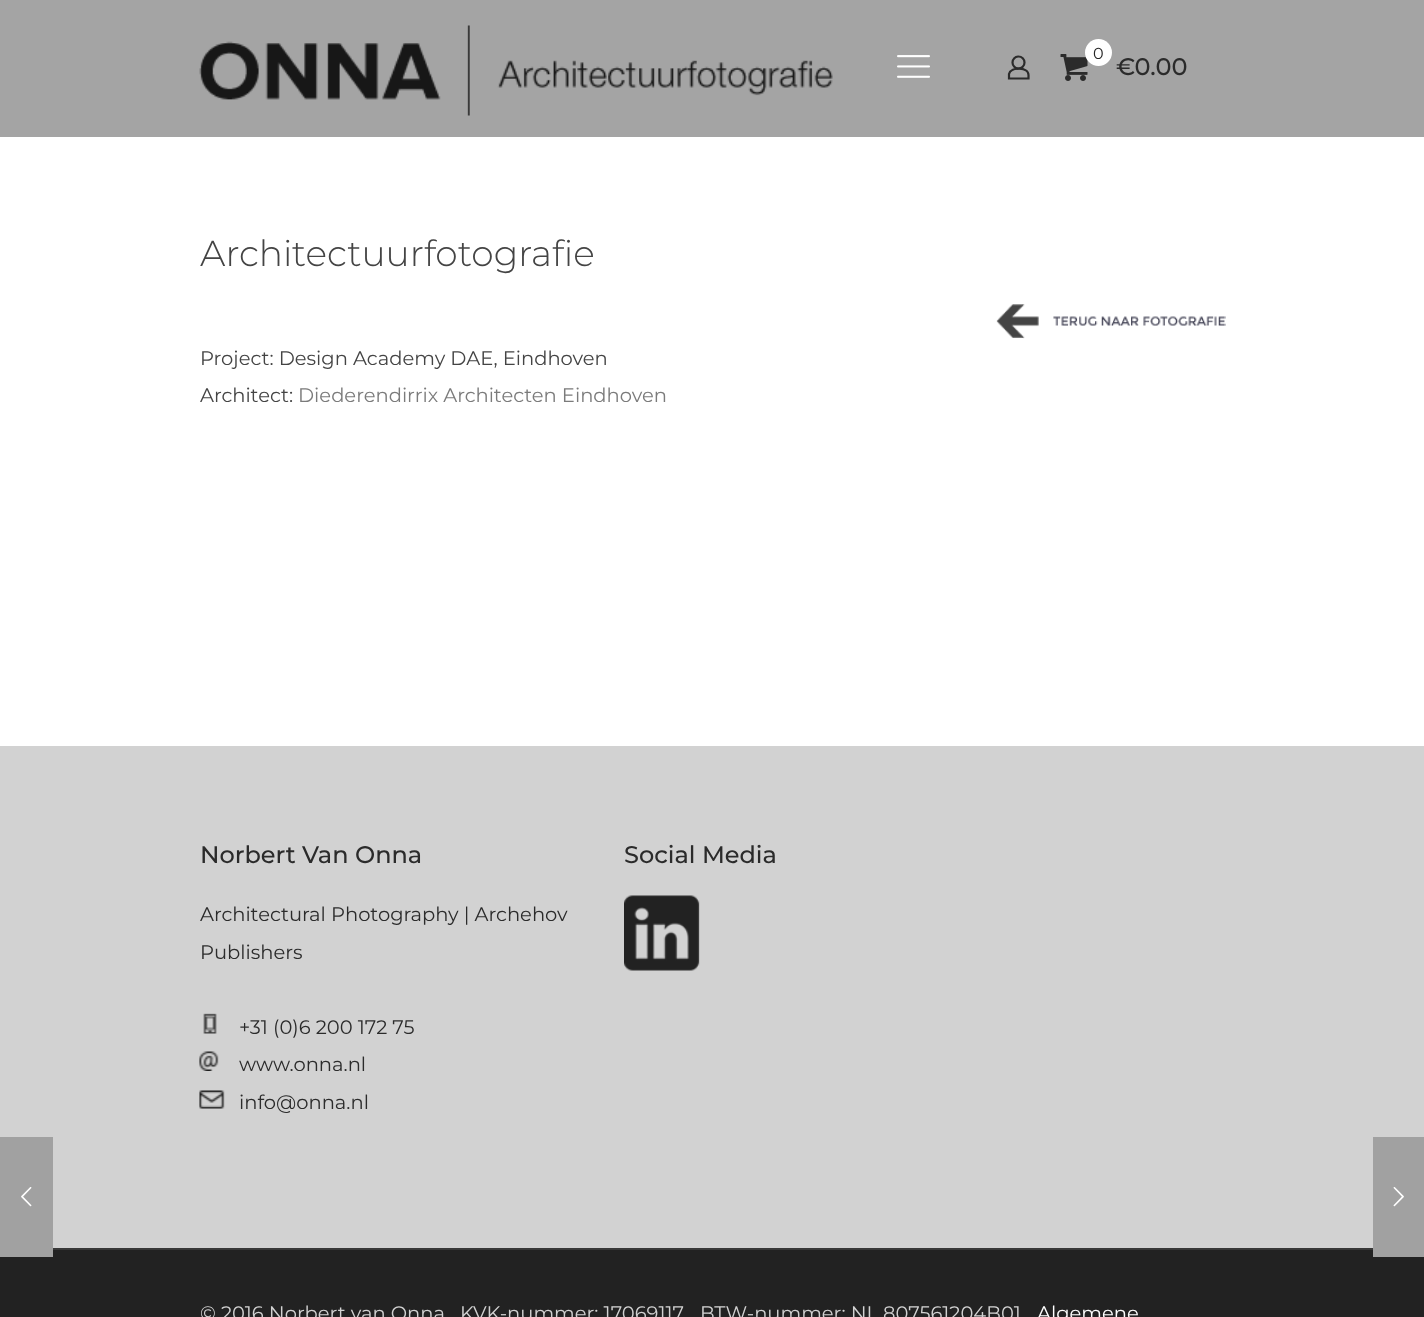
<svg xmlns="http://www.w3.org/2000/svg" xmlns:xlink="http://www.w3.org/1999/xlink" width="1424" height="1317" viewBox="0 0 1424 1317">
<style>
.cls-1{font:16px Montserrat;fill:#242424}
.cls-2{font:500 24px Montserrat;fill:#2b2b2b}
.cls-3{font:300 36px Montserrat;fill:#444444}
.cls-4{font:19.5px Montserrat;fill:#444444}
.cls-5{font:19.5px Montserrat;fill:#7b7b7b}
.cls-6{font:19.5px Montserrat;fill:#2b2b2b}
.cls-7{font:19.5px Montserrat;fill:#d2d2d2}
.cls-8{font:19.5px Montserrat;fill:#ffffff}
</style>
<rect width="100%" height="100%" fill="#ffffff"/>
<rect fill="#d2d2d2" x="0" y="746" width="1424" height="502"/>
<rect fill="#222222" x="0" y="1250" width="1424" height="67"/>
<rect fill="#a1a1a1" x="0" y="1137" width="53" height="120"/>
<image xlink:href="image0.png" x="21" y="1187" width="11" height="20"/>
<rect fill="#a4a4a4" x="0" y="0" width="1424" height="137"/>
<image xlink:href="image1.png" x="199" y="25" width="634" height="91"/>
<image xlink:href="image2.png" x="897" y="55" width="33" height="23"/>
<circle fill="none" stroke="#2b2b2b" stroke-width="2.2" cx="1018.5" cy="62.5" r="6"/>
<path fill="none" stroke="#2b2b2b" stroke-width="2.2" d="M1028.5 75V78.5H1009V74C1011 66.5 1028.5 67 1028.5 75Z"/>
<image xlink:href="image3.png" x="1060" y="54" width="28" height="27"/>
<circle fill="#ffffff" cx="1098.5" cy="52.5" r="13.5"/>
<image xlink:href="image4.png" x="996" y="304" width="230" height="35"/>
<image xlink:href="image5.png" x="203" y="1013" width="14" height="21"/>
<image xlink:href="image6.png" x="199" y="1051" width="20" height="20"/>
<image xlink:href="image7.png" x="199" y="1090" width="26" height="19"/>
<image xlink:href="image8.png" x="624" y="895" width="76" height="76"/>
<rect fill="#383838" x="53" y="1248" width="1320" height="2"/>
<rect fill="#a1a1a1" x="1373" y="1137" width="51" height="120"/>
<image xlink:href="image9.png" x="1393" y="1187" width="11" height="20"/>
<text class="cls-1" x="1093" y="59">0</text>
<text class="cls-2" x="1116" y="75">€0.00</text>
<text class="cls-3" x="200" y="266">Architectuurfotografie</text>
<text class="cls-4"><tspan x="200" y="365">Project: Design Academy DAE, Eindhoven</tspan><tspan x="200" y="402">Architect:</tspan></text>
<text class="cls-5" x="298" y="402">Diederendirrix Architecten Eindhoven</text>
<text class="cls-2" x="200" y="863">Norbert Van Onna</text>
<text class="cls-6"><tspan x="200" y="921">Architectural Photography | Archehov</tspan><tspan x="200" y="959">Publishers</tspan></text>
<text class="cls-6"><tspan x="239" y="1034">+31 (0)6 200 172 75</tspan><tspan x="239" y="1071">www.onna.nl</tspan><tspan x="239" y="1109">info@onna.nl</tspan></text>
<text class="cls-2" x="624" y="863">Social Media</text>
<text class="cls-7" x="200" y="1320">© 2016 Norbert van Onna</text>
<text class="cls-7" x="460" y="1320">KVK-nummer: 17069117</text>
<text class="cls-7" x="700" y="1320">BTW-nummer: NL 807561204B01</text>
<text class="cls-8" x="1037" y="1320">Algemene</text>
</svg>
